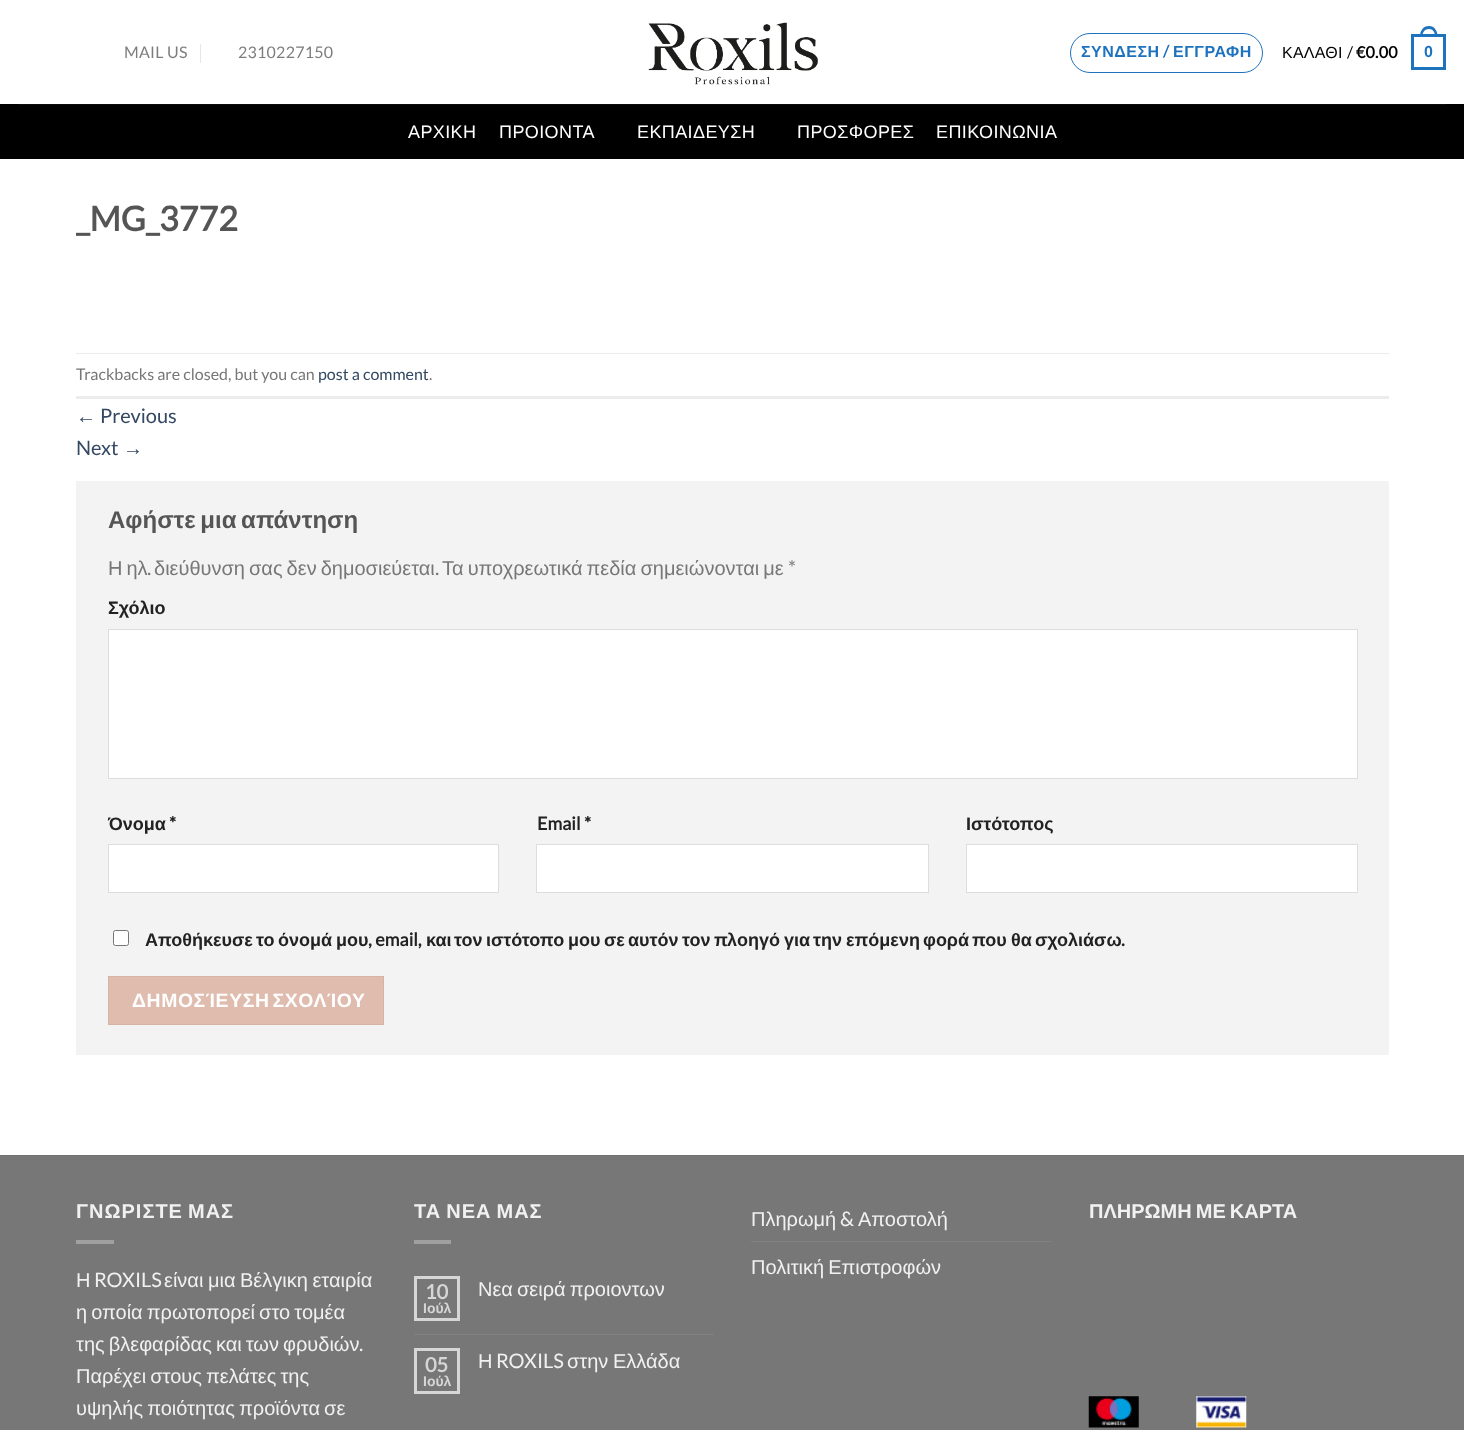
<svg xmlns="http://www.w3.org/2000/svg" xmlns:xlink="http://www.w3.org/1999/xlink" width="1464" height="1430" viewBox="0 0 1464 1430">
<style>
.cls-1{font:16px Lato;letter-spacing:0.25px;fill:#7d7d7d}
.cls-2{font:bold 16px Liberation Sans;letter-spacing:0.5px;fill:#1e73be}
.cls-3{font:bold 16px Lato;letter-spacing:0.5px;fill:#1e73be}
.cls-4{font:16px Liberation Sans;letter-spacing:0.25px;fill:#000000}
.cls-5{font:16px Lato;letter-spacing:0.25px;fill:#000000}
.cls-6{font:bold 16px Lato;letter-spacing:0.25px;fill:#000000}
.cls-7{font:bold 16px Liberation Sans;letter-spacing:0.25px;fill:#1e73be}
.cls-8{font:18px Liberation Sans;letter-spacing:0.4px;fill:#ffffff}
.cls-9{font:bold 34px Lato;fill:#555555}
.cls-10{font:16px Lato;fill:#777777}
.cls-11{font:16px Lato;fill:#334862}
.cls-12{font:20px Liberation Sans;fill:#334862}
.cls-13{font:20px Lato;fill:#334862}
.cls-14{font:bold 24px Liberation Sans;fill:#555555}
.cls-15{font:20px Liberation Sans;fill:#777777}
.cls-16{font:20px Lato;fill:#777777}
.cls-17{font:bold 18px Liberation Sans;fill:#222222}
.cls-18{font:bold 18px Lato;fill:#222222}
.cls-19{font:bold 19.4px Liberation Sans;letter-spacing:0.6px;fill:#ffffff}
.cls-20{font:bold 20px Liberation Sans;letter-spacing:1px;fill:#f1f1f1}
.cls-21{font:20px Liberation Sans;fill:#f1f1f1}
.cls-22{font:20px Lato;fill:#f1f1f1}
.cls-23{font:bold 20px Lato;fill:#d6d6d6}
.cls-24{font:bold 14px Liberation Sans;fill:#d6d6d6}
.cls-25{font:bold 20px Liberation Sans;fill:#f1f1f1}
</style>
<rect width="100%" height="100%" fill="#ffffff"/>
<rect fill="#e6e6e6" x="200" y="44" width="1" height="19"/>
<image xlink:href="image0.png" x="648" y="22" width="170" height="63"/>
<rect fill="none" stroke="#1e73be" x="1070.5" y="33.5" width="192" height="39" rx="19.5"/>
<rect fill="none" stroke="#1e73be" stroke-width="3" x="1412.5" y="35.5" width="32" height="33"/>
<path fill="#1e73be" fill-rule="evenodd" d="M1429 26C1434.5 26 1437.5 31 1437.5 36H1420C1420 31 1423 26 1429 26ZM1429 29C1433 29 1435 32.5 1435 36H1422.5C1422.5 32.5 1424.5 29 1429 29Z"/>
<rect fill="#000000" x="0" y="104" width="1464" height="55"/>
<rect fill="#0c0c0c" x="19" y="104" width="1427" height="1"/>
<rect fill="#ececec" x="76" y="353" width="1313" height="1"/>
<rect fill="#ececec" x="76" y="396" width="1313" height="3"/>
<rect fill="#f3f3f3" x="76" y="481" width="1313" height="574"/>
<rect fill="#ffffff" stroke="#dddddd" x="108.5" y="629.5" width="1249" height="149"/>
<rect fill="#ffffff" stroke="#dddddd" x="108.5" y="844.5" width="390" height="48"/>
<rect fill="#ffffff" stroke="#dddddd" x="536.5" y="844.5" width="392" height="48"/>
<rect fill="#ffffff" stroke="#dddddd" x="966.5" y="844.5" width="391" height="48"/>
<rect fill="#ffffff" stroke="#767676" x="113.5" y="930.5" width="15" height="15" rx="2"/>
<rect fill="#e0bcaf" stroke="#d5b3a6" x="108.5" y="976.5" width="275" height="48"/>
<rect fill="#777777" x="0" y="1156" width="1464" height="274"/>
<rect fill="#717171" x="0" y="1155" width="1464" height="1"/>
<rect fill="#a0a0a0" x="76" y="1240" width="38" height="4"/>
<rect fill="#a0a0a0" x="414" y="1240" width="37" height="4"/>
<rect fill="none" stroke="#d6d6d6" stroke-width="3" x="415.5" y="1277.5" width="43" height="42"/>
<rect fill="#828282" x="414" y="1334" width="300" height="1"/>
<rect fill="none" stroke="#d6d6d6" stroke-width="3" x="415.5" y="1349.5" width="43" height="43"/>
<rect fill="#828282" x="751" y="1241" width="300" height="1"/>
<image xlink:href="image1.png" x="1088" y="1396" width="51" height="32"/>
<image xlink:href="image2.png" x="1196" y="1396" width="51" height="32"/>
<text class="cls-1" x="124" y="58">MAIL US</text>
<text class="cls-1" x="238" y="58">2310227150</text>
<text class="cls-2" x="1081" y="57">ΣΥΝΔΕΣΗ</text>
<text class="cls-3" x="1163" y="57">/</text>
<text class="cls-2" x="1173" y="57">ΕΓΓΡΑΦΗ</text>
<text class="cls-4" x="1282" y="58">ΚΑΛΑΘΙ</text>
<text class="cls-5" x="1347" y="58">/</text>
<text class="cls-6" x="1356" y="58">€0.00</text>
<text class="cls-7" x="1424" y="57">0</text>
<text class="cls-8" x="408" y="138">ΑΡΧΙΚΗ</text>
<text class="cls-8" x="499" y="138">ΠΡΟΙΟΝΤΑ</text>
<text class="cls-8" x="637" y="138">ΕΚΠΑΙΔΕΥΣΗ</text>
<text class="cls-8" x="797" y="138">ΠΡΟΣΦΟΡΕΣ</text>
<text class="cls-8" x="936" y="138">ΕΠΙΚΟΙΝΩΝΙΑ</text>
<text class="cls-9" x="76" y="231">_MG_3772</text>
<text class="cls-10" x="76" y="380">Trackbacks are closed, but you can</text>
<text class="cls-11" x="318" y="380">post a comment</text>
<text class="cls-10" x="429" y="380">.</text>
<text class="cls-12" x="76" y="423">←</text>
<text class="cls-13" x="100" y="423">Previous</text>
<text class="cls-13" x="76" y="455">Next</text>
<text class="cls-12" x="123" y="455">→</text>
<text class="cls-14" x="108" y="528" word-spacing="-2">Αφήστε μια απάντηση</text>
<text class="cls-15" x="108" y="575" word-spacing="-1.5">Η ηλ</text>
<text class="cls-16" x="147" y="575">.</text>
<text class="cls-15" x="154" y="575" word-spacing="-1.5">διεύθυνση σας δεν δημοσιεύεται</text>
<text class="cls-16" x="435" y="575">.</text>
<text class="cls-15" x="442" y="575" word-spacing="-1.5">Τα υποχρεωτικά πεδία σημειώνονται με</text>
<text class="cls-16" x="788" y="575">*</text>
<text class="cls-17" x="108" y="614">Σχόλιο</text>
<text class="cls-17" x="108" y="830">Όνομα</text>
<text class="cls-18" x="169" y="830">*</text>
<text class="cls-18" x="537" y="830">Email *</text>
<text class="cls-17" x="966" y="830">Ιστότοπος</text>
<text class="cls-17" x="145" y="946">Αποθήκευσε</text>
<text class="cls-17" x="256" y="946">το</text>
<text class="cls-17" x="278" y="946">όνομά</text>
<text class="cls-17" x="336" y="946">μου</text>
<text class="cls-18" x="368" y="946">, email,</text>
<text class="cls-17" x="426" y="946">και</text>
<text class="cls-17" x="454" y="946">τον</text>
<text class="cls-17" x="486" y="946">ιστότοπο</text>
<text class="cls-17" x="568" y="946">μου</text>
<text class="cls-17" x="604" y="946">σε</text>
<text class="cls-17" x="628" y="946">αυτόν</text>
<text class="cls-17" x="682" y="946">τον</text>
<text class="cls-17" x="714" y="946">πλοηγό</text>
<text class="cls-17" x="784" y="946">για</text>
<text class="cls-17" x="813" y="946">την</text>
<text class="cls-17" x="846" y="946">επόμενη</text>
<text class="cls-17" x="923" y="946">φορά</text>
<text class="cls-17" x="972" y="946">που</text>
<text class="cls-17" x="1011" y="946">θα</text>
<text class="cls-17" x="1035" y="946">σχολιάσω</text>
<text class="cls-18" x="1121" y="946">.</text>
<text class="cls-19" x="132" y="1007" word-spacing="-3">ΔΗΜΟΣΊΕΥΣΗ ΣΧΟΛΊΟΥ</text>
<text class="cls-20" x="76" y="1218" word-spacing="-1.5">ΓΝΩΡΙΣΤΕ ΜΑΣ</text>
<text class="cls-21" x="76" y="1287">Η</text>
<text class="cls-22" x="94" y="1287">ROXILS</text>
<text class="cls-21" x="164" y="1287" word-spacing="-1">είναι μια Βέλγικη εταιρία</text>
<text class="cls-21"><tspan x="76" y="1319" word-spacing="-1.5">η οποία πρωτοπορεί στο τομέα</tspan><tspan x="76" y="1351" word-spacing="-1.5">της βλεφαρίδας και των φρυδιών</tspan></text>
<text class="cls-22" x="359" y="1351">.</text>
<text class="cls-21"><tspan x="76" y="1383" word-spacing="-1.5">Παρέχει στους πελάτες της</tspan><tspan x="76" y="1415" word-spacing="-1.5">υψηλής ποιότητας προϊόντα σε</tspan></text>
<text class="cls-20" x="414" y="1218" word-spacing="-1.5">ΤΑ ΝΕΑ ΜΑΣ</text>
<text class="cls-23" x="425" y="1299">10</text>
<text class="cls-24" x="423" y="1313">Ιούλ</text>
<text class="cls-21" x="478" y="1296" word-spacing="-1.5">Νεα σειρά προιοντων</text>
<text class="cls-23" x="425" y="1372">05</text>
<text class="cls-24" x="423" y="1386">Ιούλ</text>
<text class="cls-21" x="478" y="1368">Η</text>
<text class="cls-22" x="496" y="1368">ROXILS</text>
<text class="cls-21" x="567" y="1368" word-spacing="-1">στην Ελλάδα</text>
<text class="cls-21" x="751" y="1226">Πληρωμή</text>
<text class="cls-22" x="840" y="1226">&amp;</text>
<text class="cls-21" x="858" y="1226">Αποστολή</text>
<text class="cls-21" x="751" y="1274" word-spacing="-1.5">Πολιτική Επιστροφών</text>
<text class="cls-25" x="1089" y="1218" word-spacing="-1.5">ΠΛΗΡΩΜΗ ΜΕ ΚΑΡΤΑ</text>
</svg>
